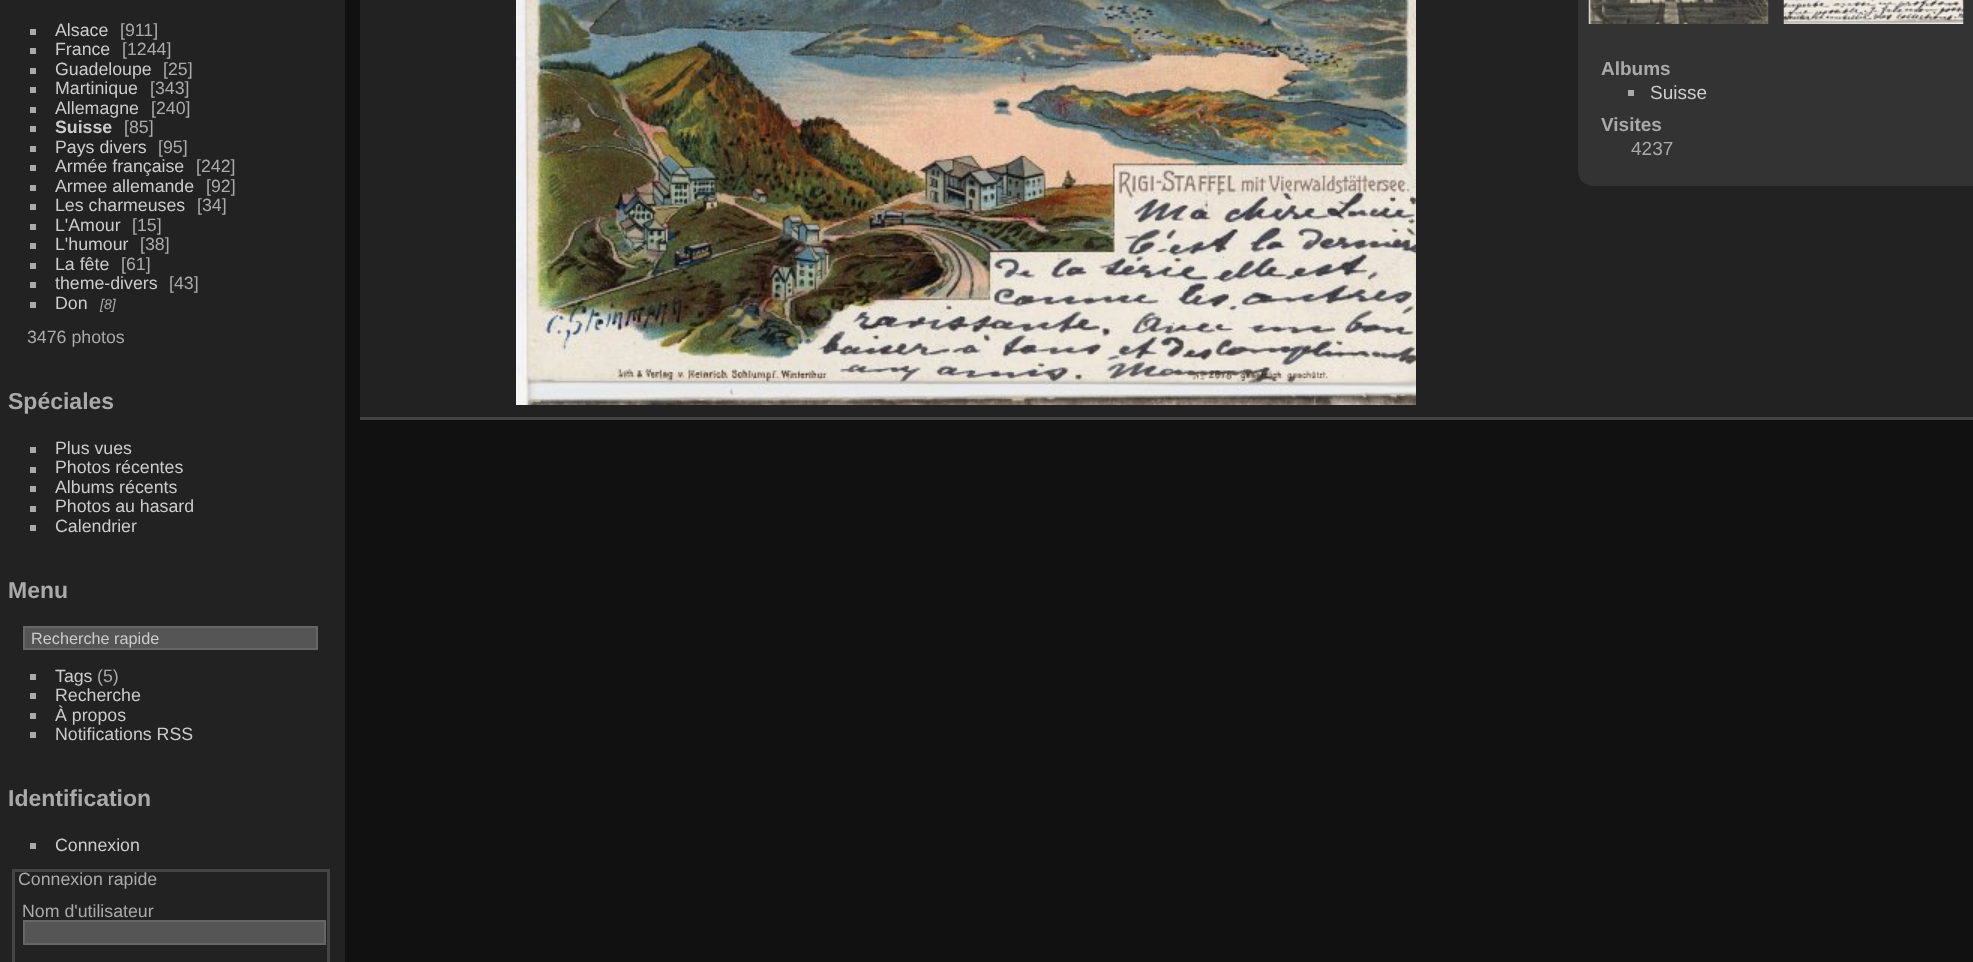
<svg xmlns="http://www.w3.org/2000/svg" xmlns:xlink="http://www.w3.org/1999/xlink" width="1973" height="962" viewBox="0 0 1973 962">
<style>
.cls-1{font:17.75px Liberation Sans;fill:#cccccc}
.cls-2{font:17.75px Liberation Sans;fill:#aaaaaa}
.cls-3{font:bold 17.75px Liberation Sans;fill:#cccccc}
.cls-4{font:italic 14px Liberation Sans;fill:#aaaaaa}
.cls-5{font:bold 23px Liberation Sans;fill:#aaaaaa}
.cls-6{font:16.25px Liberation Sans;fill:#cccccc}
.cls-7{font:bold 19px Liberation Sans;fill:#aaaaaa}
.cls-8{font:19px Liberation Sans;fill:#cccccc}
.cls-9{font:19px Liberation Sans;fill:#aaaaaa}
</style>
<rect width="100%" height="100%" fill="#111111"/>
<rect fill="#222222" x="0" y="0" width="345" height="962"/>
<rect fill="#aaaaaa" x="30" y="29" width="6" height="6"/>
<rect fill="#aaaaaa" x="30" y="48" width="6" height="6"/>
<rect fill="#aaaaaa" x="30" y="68" width="6" height="6"/>
<rect fill="#aaaaaa" x="30" y="87" width="6" height="6"/>
<rect fill="#aaaaaa" x="30" y="107" width="6" height="6"/>
<rect fill="#aaaaaa" x="30" y="126" width="6" height="6"/>
<rect fill="#aaaaaa" x="30" y="146" width="6" height="6"/>
<rect fill="#aaaaaa" x="30" y="165" width="6" height="6"/>
<rect fill="#aaaaaa" x="30" y="185" width="6" height="6"/>
<rect fill="#aaaaaa" x="30" y="204" width="6" height="6"/>
<rect fill="#aaaaaa" x="30" y="224" width="6" height="6"/>
<rect fill="#aaaaaa" x="30" y="243" width="6" height="6"/>
<rect fill="#aaaaaa" x="30" y="263" width="6" height="6"/>
<rect fill="#aaaaaa" x="30" y="282" width="6" height="6"/>
<rect fill="#aaaaaa" x="30" y="302" width="6" height="6"/>
<rect fill="#aaaaaa" x="30" y="447" width="6" height="6"/>
<rect fill="#aaaaaa" x="30" y="467" width="6" height="6"/>
<rect fill="#aaaaaa" x="30" y="486" width="6" height="6"/>
<rect fill="#aaaaaa" x="30" y="506" width="6" height="6"/>
<rect fill="#aaaaaa" x="30" y="525" width="6" height="6"/>
<rect fill="#555555" stroke="#666666" stroke-width="2" x="24" y="627" width="293" height="22"/>
<rect fill="#aaaaaa" x="30" y="674" width="6" height="6"/>
<rect fill="#aaaaaa" x="30" y="693" width="6" height="6"/>
<rect fill="#aaaaaa" x="30" y="713" width="6" height="6"/>
<rect fill="#aaaaaa" x="30" y="732" width="6" height="6"/>
<rect fill="#aaaaaa" x="30" y="843" width="6" height="6"/>
<rect fill="none" stroke="#444444" stroke-width="3" x="13.5" y="870.5" width="315" height="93"/>
<rect fill="#555555" stroke="#666666" stroke-width="2" x="24" y="921" width="301" height="23"/>
<rect fill="#222222" x="360" y="0" width="1613" height="417"/>
<rect fill="#444444" x="360" y="417" width="1613" height="3"/>
<image xlink:href="image0.png" x="516" y="0" width="900" height="405"/>
<path fill="#333333" d="M1593-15H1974V186H1593C1584.5 186 1578 179.5 1578 171V0C1578-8.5 1584.5-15 1593-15Z"/>
<image xlink:href="image1.png" x="1588" y="0" width="181" height="24"/>
<image xlink:href="image2.png" x="1783" y="0" width="181" height="24"/>
<rect fill="#aaaaaa" x="1628" y="90" width="6" height="6"/>
<text class="cls-1" x="55" y="36">Alsace</text>
<text class="cls-2" x="120" y="36">[911]</text>
<text class="cls-1" x="55" y="55">France</text>
<text class="cls-2" x="122" y="55">[1244]</text>
<text class="cls-1" x="55" y="75">Guadeloupe</text>
<text class="cls-2" x="163" y="75">[25]</text>
<text class="cls-1" x="55" y="94">Martinique</text>
<text class="cls-2" x="150" y="94">[343]</text>
<text class="cls-1" x="55" y="114">Allemagne</text>
<text class="cls-2" x="151" y="114">[240]</text>
<text class="cls-3" x="55" y="133">Suisse</text>
<text class="cls-2" x="124" y="133">[85]</text>
<text class="cls-1" x="55" y="153">Pays divers</text>
<text class="cls-2" x="158" y="153">[95]</text>
<text class="cls-1" x="55" y="172">Armée française</text>
<text class="cls-2" x="196" y="172">[242]</text>
<text class="cls-1" x="55" y="192">Armee allemande</text>
<text class="cls-2" x="206" y="192">[92]</text>
<text class="cls-1" x="55" y="211">Les charmeuses</text>
<text class="cls-2" x="197" y="211">[34]</text>
<text class="cls-1" x="55" y="231">L'Amour</text>
<text class="cls-2" x="132" y="231">[15]</text>
<text class="cls-1" x="55" y="250">L'humour</text>
<text class="cls-2" x="140" y="250">[38]</text>
<text class="cls-1" x="55" y="270">La fête</text>
<text class="cls-2" x="121" y="270">[61]</text>
<text class="cls-1" x="55" y="289">theme-divers</text>
<text class="cls-2" x="169" y="289">[43]</text>
<text class="cls-1" x="55" y="309">Don</text>
<text class="cls-4" x="100" y="309">[8]</text>
<text class="cls-2" x="27" y="343">3476 photos</text>
<text class="cls-5" x="8" y="409">Spéciales</text>
<text class="cls-1"><tspan x="55" y="454">Plus vues</tspan><tspan x="55" y="473">Photos récentes</tspan><tspan x="55" y="493">Albums récents</tspan><tspan x="55" y="512">Photos au hasard</tspan><tspan x="55" y="532">Calendrier</tspan></text>
<text class="cls-5" x="8" y="598">Menu</text>
<text class="cls-6" x="31" y="644">Recherche rapide</text>
<text class="cls-1" x="55" y="682">Tags</text>
<text class="cls-2" x="97" y="682">(5)</text>
<text class="cls-1"><tspan x="55" y="701">Recherche</tspan><tspan x="55" y="721">À propos</tspan><tspan x="55" y="740">Notifications RSS</tspan></text>
<text class="cls-5" x="8" y="806">Identification</text>
<text class="cls-1" x="55" y="851">Connexion</text>
<text class="cls-2" x="18" y="885">Connexion rapide</text>
<text class="cls-2" x="22" y="917">Nom d'utilisateur</text>
<text class="cls-7" x="1601" y="75">Albums</text>
<text class="cls-8" x="1650" y="99">Suisse</text>
<text class="cls-7" x="1601" y="131">Visites</text>
<text class="cls-9" x="1631" y="155">4237</text>
</svg>
